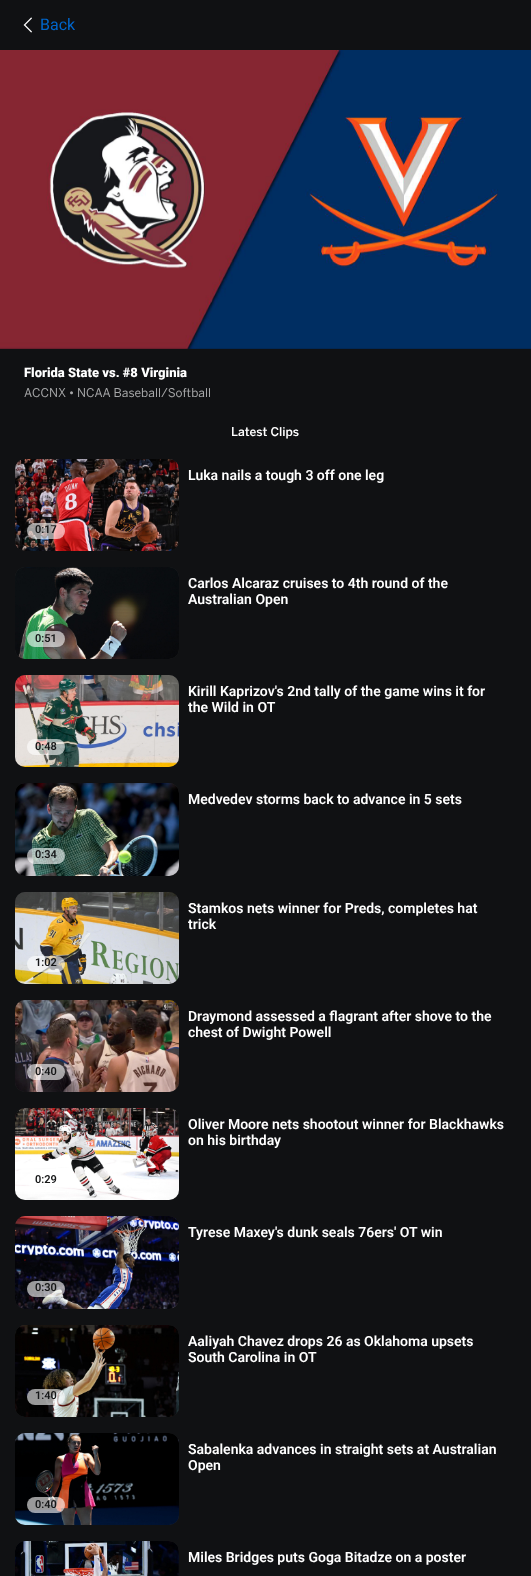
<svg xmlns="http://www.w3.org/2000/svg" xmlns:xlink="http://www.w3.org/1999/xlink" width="531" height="1576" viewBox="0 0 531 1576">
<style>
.cls-1{font:16px Roboto;fill:#0066cc}
.cls-2{font:900 13px Roboto;fill:#ffffff}
.cls-3{font:12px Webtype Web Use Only;fill:#a5a6a7}
.cls-4{font:500 12px Webtype Web Use Only;fill:#ffffff}
.cls-5{font:600 14px Roboto;fill:#ffffff}
.cls-6{font:600 11px Roboto;fill:#151617}
</style>
<rect width="100%" height="100%" fill="#101113"/>
<image xlink:href="image0.png" x="23" y="17" width="9" height="16"/>
<image xlink:href="image1.png" x="0" y="50" width="531" height="299"/>
<rect fill="#2b2c2d" x="15" y="459" width="164" height="92" rx="10"/>
<image xlink:href="image2.png" x="15" y="459" width="164" height="92"/>
<rect fill="#ffffff" fill-opacity="0.6" x="27" y="523" width="38" height="16" rx="8"/>
<rect fill="#2b2c2d" x="15" y="567" width="164" height="92" rx="10"/>
<image xlink:href="image3.png" x="15" y="567" width="164" height="92"/>
<rect fill="#ffffff" fill-opacity="0.6" x="27" y="631" width="38" height="16" rx="8"/>
<rect fill="#2b2c2d" x="15" y="675" width="164" height="92" rx="10"/>
<image xlink:href="image4.png" x="15" y="675" width="164" height="92"/>
<rect fill="#ffffff" fill-opacity="0.6" x="27" y="739" width="38" height="16" rx="8"/>
<rect fill="#2b2c2d" x="15" y="783" width="164" height="93" rx="10"/>
<image xlink:href="image5.png" x="15" y="783" width="164" height="93"/>
<rect fill="#ffffff" fill-opacity="0.6" x="27" y="848" width="38" height="16" rx="8"/>
<rect fill="#2b2c2d" x="15" y="892" width="164" height="92" rx="10"/>
<image xlink:href="image6.png" x="15" y="892" width="164" height="92"/>
<rect fill="#ffffff" fill-opacity="0.6" x="27" y="956" width="38" height="16" rx="8"/>
<rect fill="#2b2c2d" x="15" y="1000" width="164" height="92" rx="10"/>
<image xlink:href="image7.png" x="15" y="1000" width="164" height="92"/>
<rect fill="#ffffff" fill-opacity="0.6" x="27" y="1064" width="38" height="16" rx="8"/>
<rect fill="#2b2c2d" x="15" y="1108" width="164" height="92" rx="10"/>
<image xlink:href="image8.png" x="15" y="1108" width="164" height="92"/>
<rect fill="#ffffff" fill-opacity="0.6" x="27" y="1172" width="38" height="16" rx="8"/>
<rect fill="#2b2c2d" x="15" y="1216" width="164" height="93" rx="10"/>
<image xlink:href="image9.png" x="15" y="1216" width="164" height="93"/>
<rect fill="#ffffff" fill-opacity="0.6" x="27" y="1281" width="38" height="16" rx="8"/>
<rect fill="#2b2c2d" x="15" y="1325" width="164" height="92" rx="10"/>
<image xlink:href="image10.png" x="15" y="1325" width="164" height="92"/>
<rect fill="#ffffff" fill-opacity="0.6" x="27" y="1389" width="38" height="16" rx="8"/>
<rect fill="#2b2c2d" x="15" y="1433" width="164" height="92" rx="10"/>
<image xlink:href="image11.png" x="15" y="1433" width="164" height="92"/>
<rect fill="#ffffff" fill-opacity="0.6" x="27" y="1497" width="38" height="16" rx="8"/>
<rect fill="#2b2c2d" x="15" y="1541" width="164" height="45" rx="10"/>
<image xlink:href="image12.png" x="15" y="1541" width="164" height="35"/>
<text class="cls-1" x="40" y="30">Back</text>
<text class="cls-2" x="24" y="377">Florida State vs. #8 Virginia</text>
<text class="cls-3" x="24" y="397">ACCNX • NCAA Baseball/Softball</text>
<text class="cls-4" x="231" y="436">Latest Clips</text>
<text class="cls-5" x="188" y="480">Luka nails a tough 3 off one leg</text>
<text class="cls-6" x="35" y="533">0:17</text>
<text class="cls-5"><tspan x="188" y="588">Carlos Alcaraz cruises to 4th round of the</tspan><tspan x="188" y="604">Australian Open</tspan></text>
<text class="cls-6" x="35" y="642">0:51</text>
<text class="cls-5"><tspan x="188" y="696">Kirill Kaprizov's 2nd tally of the game wins it for</tspan><tspan x="188" y="712">the Wild in OT</tspan></text>
<text class="cls-6" x="35" y="750">0:48</text>
<text class="cls-5" x="188" y="804">Medvedev storms back to advance in 5 sets</text>
<text class="cls-6" x="35" y="858">0:34</text>
<text class="cls-5"><tspan x="188" y="913">Stamkos nets winner for Preds, completes hat</tspan><tspan x="188" y="929">trick</tspan></text>
<text class="cls-6" x="35" y="966">1:02</text>
<text class="cls-5"><tspan x="188" y="1021">Draymond assessed a flagrant after shove to the</tspan><tspan x="188" y="1037">chest of Dwight Powell</tspan></text>
<text class="cls-6" x="35" y="1075">0:40</text>
<text class="cls-5"><tspan x="188" y="1129">Oliver Moore nets shootout winner for Blackhawks</tspan><tspan x="188" y="1145">on his birthday</tspan></text>
<text class="cls-6" x="35" y="1183">0:29</text>
<text class="cls-5" x="188" y="1237">Tyrese Maxey's dunk seals 76ers' OT win</text>
<text class="cls-6" x="35" y="1291">0:30</text>
<text class="cls-5"><tspan x="188" y="1346">Aaliyah Chavez drops 26 as Oklahoma upsets</tspan><tspan x="188" y="1362">South Carolina in OT</tspan></text>
<text class="cls-6" x="35" y="1399">1:40</text>
<text class="cls-5"><tspan x="188" y="1454">Sabalenka advances in straight sets at Australian</tspan><tspan x="188" y="1470">Open</tspan></text>
<text class="cls-6" x="35" y="1508">0:40</text>
<text class="cls-5" x="188" y="1562">Miles Bridges puts Goga Bitadze on a poster</text>
</svg>
